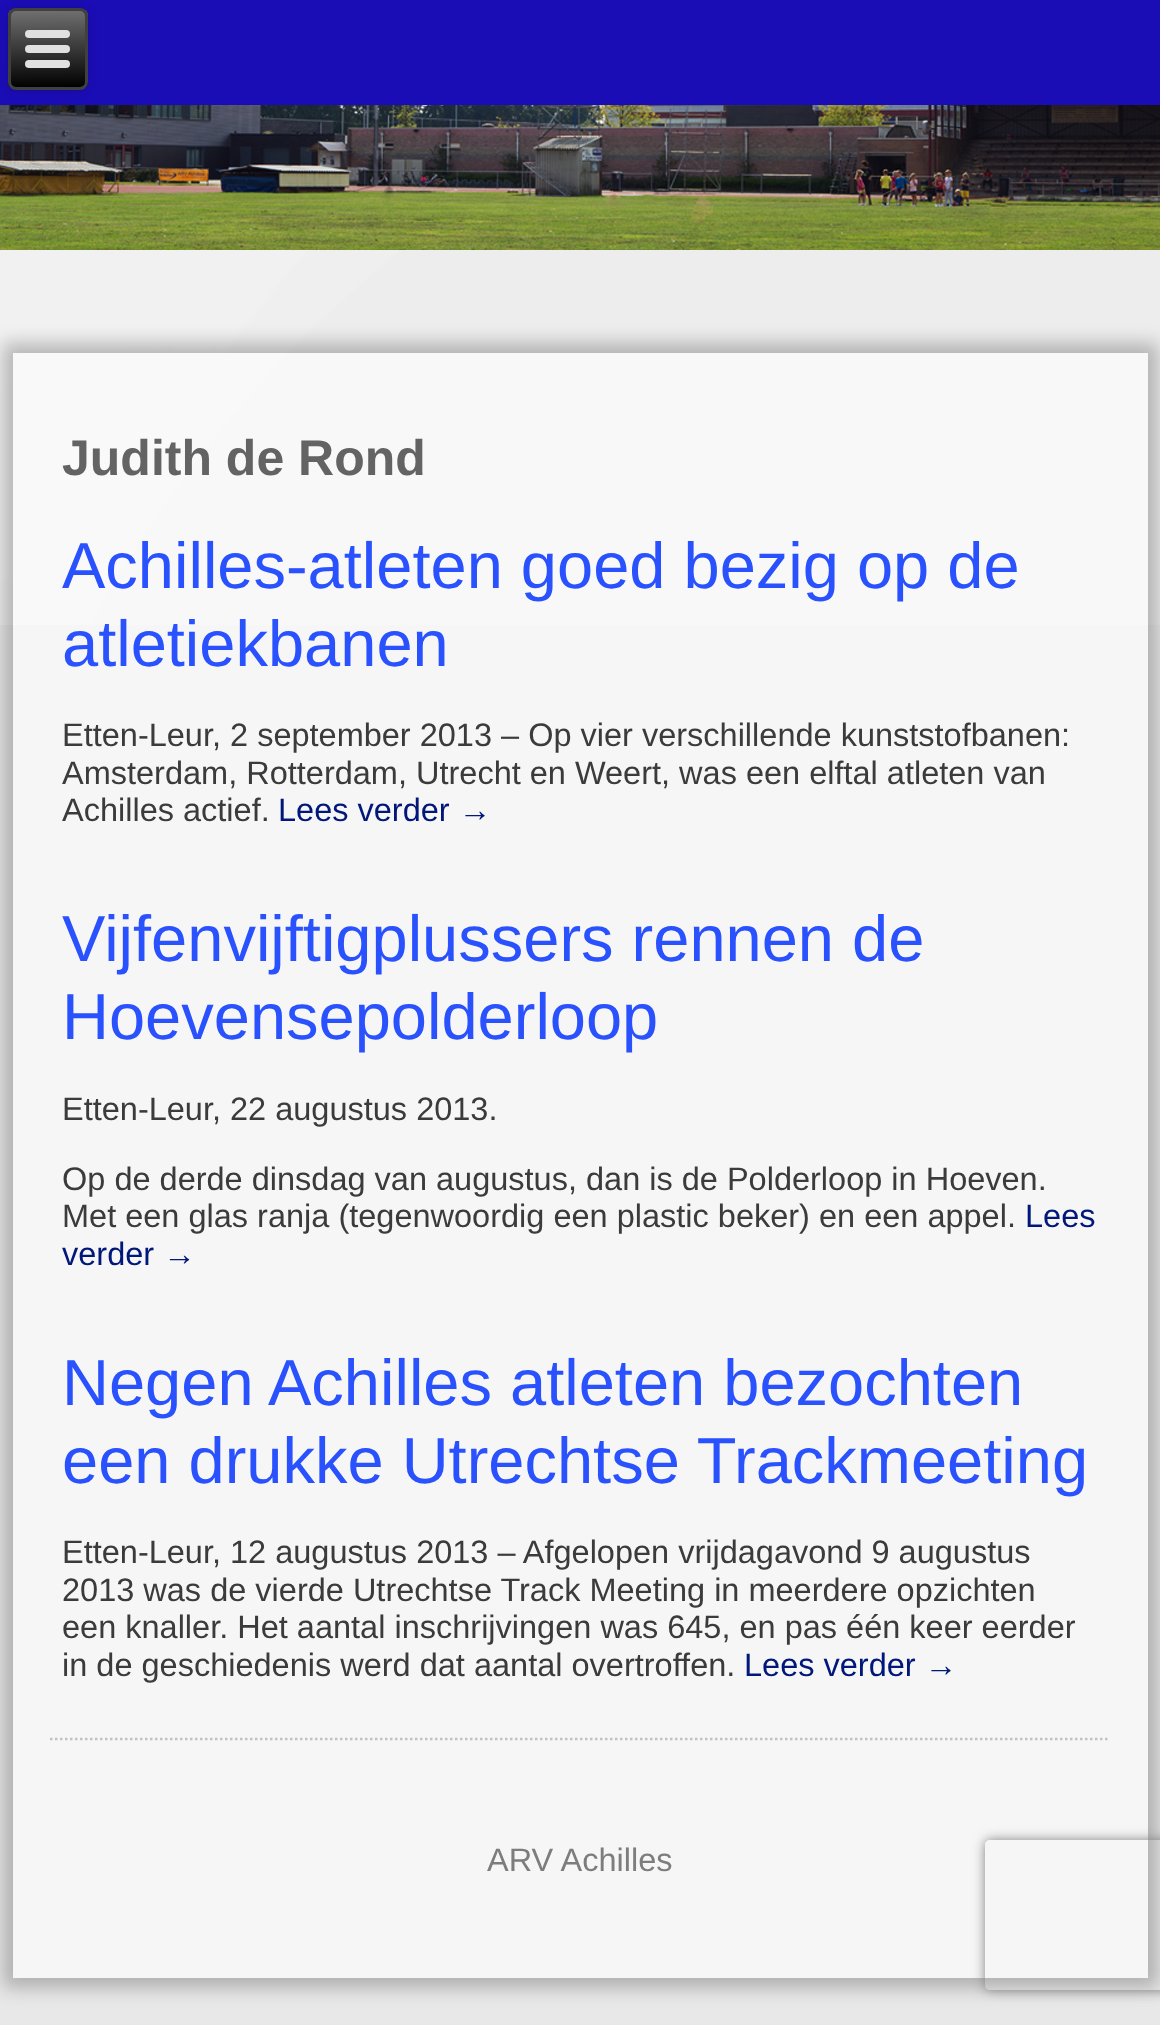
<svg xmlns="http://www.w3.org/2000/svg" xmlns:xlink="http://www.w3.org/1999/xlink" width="1160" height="2025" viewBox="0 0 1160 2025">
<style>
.cls-1{font:bold 50px Liberation Sans;fill:#636363}
.cls-2{font:65px Liberation Sans;fill:#2a51fe}
.cls-3{font:32.5px Liberation Sans;fill:#3b3b3b}
.cls-4{font:32.5px Liberation Sans;fill:#01177a}
.cls-5{font:32.5px Liberation Sans;fill:#7d7d7d}
</style>
<defs>
<clipPath id="clip1"><rect x="8" y="8" width="80" height="82" rx="8"/></clipPath>
<linearGradient id="g1" gradientUnits="userSpaceOnUse" x1="47" y1="10" x2="48" y2="88"><stop offset="0" stop-color="#707070"/><stop offset="1" stop-color="#000000"/></linearGradient>
<clipPath id="clip2"><path d="M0 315H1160V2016H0ZM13 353H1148V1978H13Z" clip-rule="evenodd"/></clipPath>
<clipPath id="clip3"><path d="M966 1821H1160V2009H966ZM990 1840H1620C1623 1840 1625 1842 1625 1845V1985C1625 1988 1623 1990 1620 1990H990C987 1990 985 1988 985 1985V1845C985 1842 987 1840 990 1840Z" clip-rule="evenodd"/></clipPath>
</defs>
<rect width="100%" height="100%" fill="#e8e8e8"/>
<image xlink:href="image0.png" x="0" y="250" width="1160" height="375"/>
<image xlink:href="image1.png" x="0" y="105" width="1160" height="145"/>
<rect fill="#1b0db5" x="0" y="0" width="1160" height="105"/>
<rect fill="#000000" fill-opacity="0.2" filter="blur(4px)" x="8" y="8" width="80" height="82" rx="8"/>
<g clip-path="url(#clip1)">
<rect fill="url(#g1)" x="8" y="10" width="80" height="78"/>
</g>
<rect fill="none" stroke="#404040" stroke-width="3" x="9.5" y="9.5" width="77" height="79" rx="6.5"/>
<rect fill="#e0e0e0" x="25" y="30" width="45" height="8" rx="4"/>
<rect fill="#e0e0e0" x="25" y="45" width="45" height="8" rx="4"/>
<rect fill="#e0e0e0" x="25" y="60" width="45" height="8" rx="4"/>
<g clip-path="url(#clip2)">
<rect fill="#000000" fill-opacity="0.24" filter="blur(9px)" x="3" y="343" width="1155" height="1645"/>
</g>
<rect fill="#ffffff" fill-opacity="0.6" x="13" y="353" width="1135" height="1625"/>
<path fill="none" stroke="#c2c2c2" stroke-width="2.5" stroke-dasharray="2.5 2.5" d="M50 1739H1110"/>
<g clip-path="url(#clip3)">
<rect fill="#808080" filter="blur(6px)" x="985" y="1840" width="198" height="150" rx="5"/>
</g>
<text class="cls-1" x="62" y="475">Judith de Rond</text>
<text class="cls-2"><tspan x="62" y="588">Achilles-atleten goed bezig op de</tspan><tspan x="62" y="666">atletiekbanen</tspan></text>
<text class="cls-3"><tspan x="62" y="746">Etten-Leur, 2 september 2013 – Op vier verschillende kunststofbanen:</tspan><tspan x="62" y="784">Amsterdam, Rotterdam, Utrecht en Weert, was een elftal atleten van</tspan><tspan x="62" y="821">Achilles actief.</tspan></text>
<text class="cls-4" x="278" y="821">Lees verder →</text>
<text class="cls-2"><tspan x="62" y="961">Vijfenvijftigplussers rennen de</tspan><tspan x="62" y="1039">Hoevensepolderloop</tspan></text>
<text class="cls-3" x="62" y="1120">Etten-Leur, 22 augustus 2013.</text>
<text class="cls-3"><tspan x="62" y="1190">Op de derde dinsdag van augustus, dan is de Polderloop in Hoeven.</tspan><tspan x="62" y="1227">Met een glas ranja (tegenwoordig een plastic beker) en een appel.</tspan></text>
<text class="cls-4" x="1025" y="1227">Lees</text>
<text class="cls-4" x="62" y="1265">verder →</text>
<text class="cls-2"><tspan x="62" y="1405">Negen Achilles atleten bezochten</tspan><tspan x="62" y="1483">een drukke Utrechtse Trackmeeting</tspan></text>
<text class="cls-3"><tspan x="62" y="1563">Etten-Leur, 12 augustus 2013 – Afgelopen vrijdagavond 9 augustus</tspan><tspan x="62" y="1601">2013 was de vierde Utrechtse Track Meeting in meerdere opzichten</tspan><tspan x="62" y="1638">een knaller. Het aantal inschrijvingen was 645, en pas één keer eerder</tspan><tspan x="62" y="1676">in de geschiedenis werd dat aantal overtroffen.</tspan></text>
<text class="cls-4" x="744" y="1676">Lees verder →</text>
<text class="cls-5" x="487" y="1871">ARV Achilles</text>
</svg>
